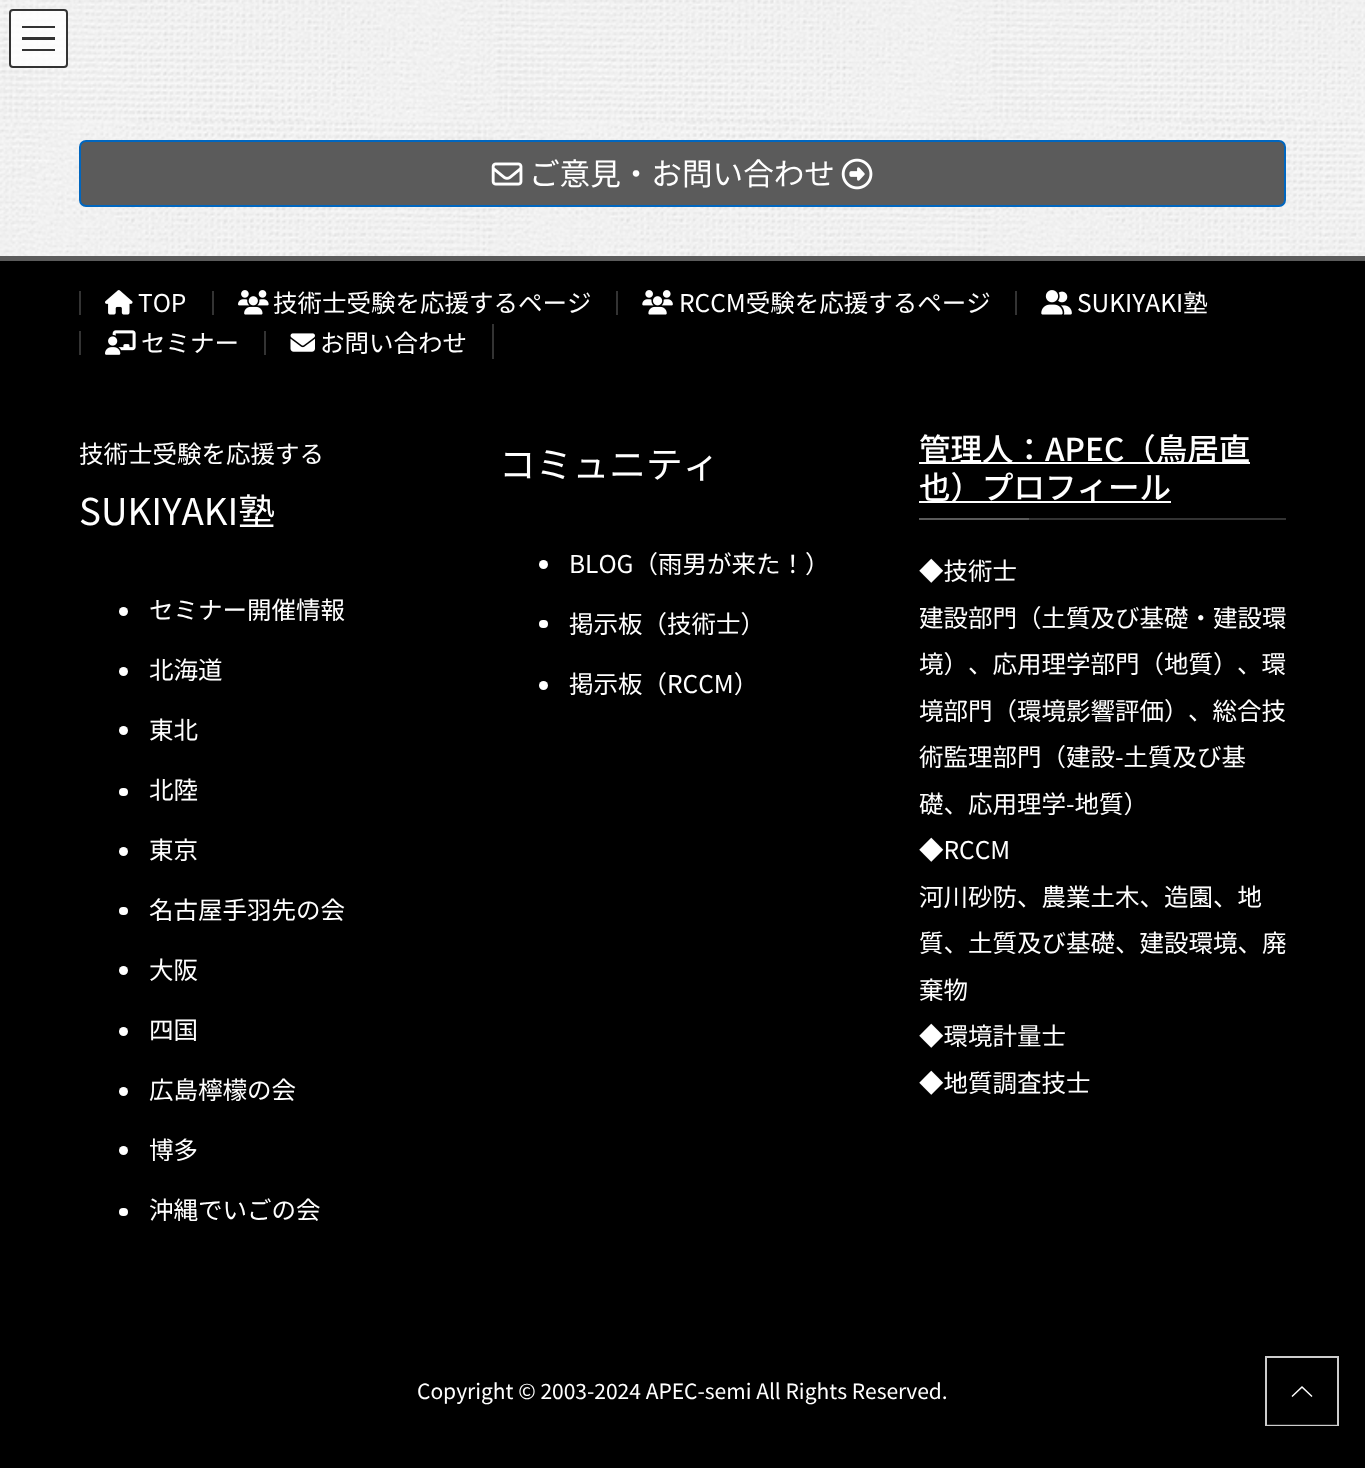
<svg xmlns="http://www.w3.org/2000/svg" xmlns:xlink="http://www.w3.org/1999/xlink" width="1365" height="1468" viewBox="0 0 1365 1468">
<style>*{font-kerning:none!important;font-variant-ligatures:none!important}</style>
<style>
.cls-1{font:30.6px Noto Sans JP;fill:#ffffff}
.cls-2{font:24.5px Noto Sans JP;fill:#ffffff}
.cls-3{font:36.75px Noto Sans JP;fill:#ffffff}
.cls-4{font:500 31.5px Noto Sans JP;fill:#ffffff}
.cls-5{font:21px Noto Sans JP;fill:#ffffff}
</style>
<rect width="100%" height="100%" fill="#ffffff"/>
<image xlink:href="image0.png" x="0" y="0" width="1365" height="256"/>
<rect fill="#ffffff" fill-opacity="0.8" x="9" y="9" width="59" height="59" rx="4"/>
<rect fill="#000000" fill-opacity="0.8" x="22" y="26" width="33" height="2"/>
<rect fill="#000000" fill-opacity="0.8" x="22" y="37" width="33" height="3"/>
<rect fill="#333333" x="22" y="49" width="33" height="2"/>
<rect fill="none" stroke="#333333" stroke-width="2" x="10" y="10" width="57" height="57" rx="3"/>
<rect fill="#5b5b5b" stroke="#0066bf" stroke-width="2" x="80" y="141" width="1205" height="65" rx="6"/>
<image xlink:href="image1.png" x="491" y="162" width="32" height="24"/>
<image xlink:href="image2.png" x="841" y="158" width="32" height="32"/>
<rect fill="#000000" x="0" y="261" width="1365" height="1207"/>
<rect fill="#5b5b5b" x="0" y="256" width="1365" height="5"/>
<rect fill="#333333" x="79" y="291" width="2" height="24"/>
<image xlink:href="image3.png" x="105" y="290" width="28" height="25"/>
<rect fill="#333333" x="212" y="291" width="2" height="24"/>
<image xlink:href="image4.png" x="238" y="290" width="31" height="25"/>
<rect fill="#333333" x="616" y="291" width="2" height="24"/>
<image xlink:href="image5.png" x="642" y="290" width="31" height="25"/>
<rect fill="#333333" x="1015" y="291" width="2" height="24"/>
<image xlink:href="image6.png" x="1041" y="290" width="31" height="25"/>
<rect fill="#333333" x="79" y="331" width="2" height="24"/>
<image xlink:href="image7.png" x="105" y="330" width="31" height="25"/>
<rect fill="#333333" x="264" y="331" width="2" height="24"/>
<rect fill="#333333" x="492" y="324" width="2" height="35"/>
<image xlink:href="image8.png" x="290" y="333" width="25" height="19"/>
<circle fill="#ffffff" cx="123.5" cy="611.5" r="4.5"/>
<circle fill="#ffffff" cx="123.5" cy="671.5" r="4.5"/>
<circle fill="#ffffff" cx="123.5" cy="730.5" r="4.5"/>
<rect fill="#ffffff" x="119" y="788" width="9" height="8" rx="4"/>
<circle fill="#ffffff" cx="123.5" cy="851.5" r="4.5"/>
<rect fill="#ffffff" x="119" y="907" width="9" height="8" rx="4"/>
<circle fill="#ffffff" cx="123.5" cy="970.5" r="4.5"/>
<circle fill="#ffffff" cx="123.5" cy="1031.5" r="4.5"/>
<circle fill="#ffffff" cx="123.5" cy="1091.5" r="4.5"/>
<circle fill="#ffffff" cx="123.5" cy="1150.5" r="4.5"/>
<rect fill="#ffffff" x="119" y="1208" width="9" height="8" rx="4"/>
<circle fill="#ffffff" cx="543.5" cy="564.5" r="4.5"/>
<rect fill="#ffffff" x="539" y="620" width="9" height="8" rx="4"/>
<circle fill="#ffffff" cx="543.5" cy="685.5" r="4.5"/>
<rect fill="#333333" x="1029" y="518" width="257" height="2"/>
<rect fill="#ffffff" x="919" y="462" width="331" height="2"/>
<rect fill="#ffffff" x="919" y="501" width="252" height="2"/>
<rect fill="#5b5b5b" x="919" y="518" width="110" height="2"/>
<rect fill="none" stroke="#cccccc" stroke-width="2" x="1266" y="1357" width="72" height="68"/>
<rect fill="#000000" fill-opacity="0.8" x="1267" y="1424" width="70" height="1"/>
<path fill="#ffffff" d="M1312.5 1396L1311.5 1397L1302 1388L1292.5 1397L1291.5 1396L1302 1386Z"/>
<text class="cls-1" x="529" y="185">ご意見・お問い合わせ</text>
<text class="cls-2" x="138" y="312">TOP</text>
<text class="cls-2" x="273" y="312">技術士受験を応援するページ</text>
<text class="cls-2" x="679" y="312">RCCM受験を応援するページ</text>
<text class="cls-2" x="1077" y="312">SUKIYAKI塾</text>
<text class="cls-2" x="141" y="352">セミナー</text>
<text class="cls-2" x="320" y="352">お問い合わせ</text>
<text class="cls-2" x="79" y="463">技術士受験を応援する</text>
<text class="cls-3" x="79" y="525">SUKIYAKI塾</text>
<text class="cls-2" x="149" y="619">セミナー開催情報</text>
<text class="cls-2" x="149" y="679">北海道</text>
<text class="cls-2" x="149" y="739">東北</text>
<text class="cls-2" x="149" y="799">北陸</text>
<text class="cls-2" x="149" y="859">東京</text>
<text class="cls-2" x="149" y="919">名古屋手羽先の会</text>
<text class="cls-2" x="149" y="979">大阪</text>
<text class="cls-2" x="149" y="1039">四国</text>
<text class="cls-2" x="149" y="1099">広島檸檬の会</text>
<text class="cls-2" x="149" y="1159">博多</text>
<text class="cls-2" x="149" y="1219">沖縄でいごの会</text>
<text class="cls-3" x="499" y="478">コミュニティ</text>
<text class="cls-2" x="569" y="573">BLOG（雨男が来た！）</text>
<text class="cls-2" x="569" y="633">掲示板（技術士）</text>
<text class="cls-2" x="569" y="693">掲示板（RCCM）</text>
<text class="cls-4"><tspan x="919" y="461">管理人：APEC（鳥居直</tspan><tspan x="919" y="499">也）プロフィール</tspan></text>
<text class="cls-2"><tspan x="919" y="580">◆技術士</tspan><tspan x="919" y="627">建設部門（土質及び基礎・建設環</tspan><tspan x="919" y="673">境）</tspan></text>
<text class="cls-2" x="968" y="673">、応用理学部門（地質）</text>
<text class="cls-2" x="1237" y="673">、環</text>
<text class="cls-2" x="919" y="720">境部門（環境影響評価）</text>
<text class="cls-2" x="1188" y="720">、総合技</text>
<text class="cls-2"><tspan x="919" y="766">術監理部門（建設-土質及び基</tspan><tspan x="919" y="813">礎、応用理学-地質）</tspan><tspan x="919" y="859">◆RCCM</tspan><tspan x="919" y="906">河川砂防、農業土木、造園、地</tspan><tspan x="919" y="952">質、土質及び基礎、建設環境、廃</tspan><tspan x="919" y="999">棄物</tspan><tspan x="919" y="1045">◆環境計量士</tspan><tspan x="919" y="1092">◆地質調査技士</tspan></text>
<text class="cls-5" x="417" y="1399">Copyright © 2003-2024 APEC-semi All Rights Reserved.</text>
</svg>
